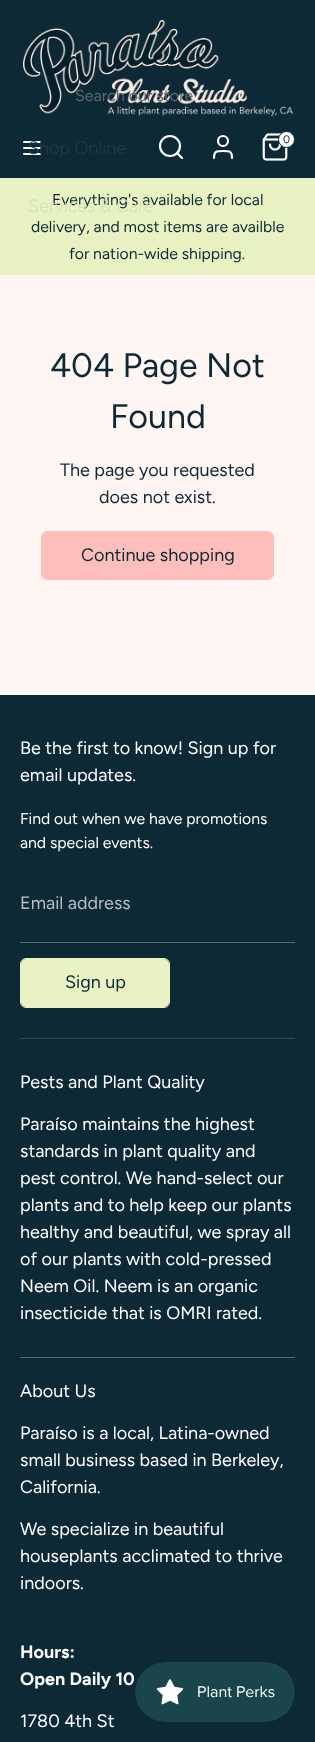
<svg xmlns="http://www.w3.org/2000/svg" xmlns:xlink="http://www.w3.org/1999/xlink" width="315" height="1742" viewBox="0 0 315 1742">
<style>
.cls-1{font:16px Figtree;fill:#5c696f}
.cls-2{font:300 18px Figtree;fill:#233c47}
.cls-3{font:15.75px Figtree;fill:#0d2935}
.cls-4{font:300 18px Figtree;fill:#d6e1b7}
.cls-5{font:11px Figtree;fill:#0d2935}
.cls-6{font:34px Figtree;fill:#0d2935}
.cls-7{font:18px Figtree;fill:#0d2935}
.cls-8{font:18px Figtree;fill:#ffffff}
.cls-9{font:15.75px Figtree;fill:#ffffff}
.cls-10{font:18px Figtree;fill:#b6bfc2}
.cls-11{font:bold 18px Figtree;fill:#ffffff}
</style>
<rect width="100%" height="100%" fill="#fff5f2"/>
<rect fill="#e9f2c3" x="0" y="178" width="315" height="97"/>
<rect fill="#0d2935" x="0" y="0" width="315" height="178"/>
<image xlink:href="image0.png" x="23" y="20" width="270" height="97"/>
<circle fill="none" stroke="#ffffff" stroke-width="2.2" cx="170" cy="146" r="10"/>
<path fill="none" stroke="#ffffff" stroke-width="2.2" stroke-linecap="round" stroke-linejoin="round" d="M182 158L177 153M232 158C232 151 229.5 151 223 151C216.5 151 214 151 214 158"/>
<circle fill="none" stroke="#ffffff" stroke-width="2.2" cx="223" cy="141" r="5"/>
<image xlink:href="image1.png" x="262" y="133" width="26" height="28"/>
<circle fill="#ffffff" stroke="#0d2935" cx="286.5" cy="139.5" r="8"/>
<path fill="none" stroke="#ffffff" stroke-width="2" stroke-linecap="round" stroke-linejoin="round" d="M24 148H40M24 142H40M24 154H40"/>
<rect fill="none" stroke="#febfbc" x="41.5" y="531.5" width="232" height="48" rx="5.5"/>
<rect fill="#febfbc" x="42" y="532" width="231" height="47" rx="5"/>
<rect fill="#0d2935" x="0" y="695" width="315" height="1047"/>
<rect fill="#566972" x="20" y="942" width="275" height="1"/>
<rect fill="none" stroke="#e9f2c3" x="20.5" y="958.5" width="149" height="49" rx="5.5"/>
<rect fill="#e9f2c3" x="21" y="959" width="148" height="48" rx="5"/>
<rect fill="#314953" x="20" y="1038" width="275" height="1"/>
<rect fill="#566972" x="20" y="1357" width="275" height="1"/>
<image xlink:href="image2.png" x="135" y="1662" width="160" height="60"/>
<text class="cls-1" x="75" y="101">Search our store</text>
<text class="cls-2" x="28" y="154">Shop Online</text>
<text class="cls-3" x="52" y="205">Everything's available for local</text>
<text class="cls-4" x="28" y="212">Services &amp; Care</text>
<text class="cls-3" x="31" y="232">delivery, and most items are availble</text>
<text class="cls-3" x="69" y="259">for nation-wide shipping.</text>
<text class="cls-5" x="283" y="143">0</text>
<text class="cls-6" x="50" y="377">404 Page Not</text>
<text class="cls-6" x="110" y="428">Found</text>
<text class="cls-7" x="60" y="476">The page you requested</text>
<text class="cls-7" x="99" y="503">does not exist.</text>
<text class="cls-7" x="81" y="561">Continue shopping</text>
<text class="cls-8"><tspan x="20" y="754">Be the first to know! Sign up for</tspan><tspan x="20" y="781">email updates.</tspan></text>
<text class="cls-9"><tspan x="20" y="824">Find out when we have promotions</tspan><tspan x="20" y="848">and special events.</tspan></text>
<text class="cls-10" x="20" y="909">Email address</text>
<text class="cls-7" x="65" y="988">Sign up</text>
<text class="cls-8" x="20" y="1088">Pests and Plant Quality</text>
<text class="cls-8"><tspan x="20" y="1130">Paraíso maintains the highest</tspan><tspan x="20" y="1157">standards in plant quality and</tspan><tspan x="20" y="1184">pest control. We hand-select our</tspan><tspan x="20" y="1211">plants and to help keep our plants</tspan><tspan x="20" y="1238">healthy and beautiful, we spray all</tspan><tspan x="20" y="1265">of our plants with cold-pressed</tspan><tspan x="20" y="1292">Neem Oil. Neem is an organic</tspan><tspan x="20" y="1319">insecticide that is OMRI rated.</tspan></text>
<text class="cls-8" x="20" y="1397">About Us</text>
<text class="cls-8"><tspan x="20" y="1439">Paraíso is a local, Latina-owned</tspan><tspan x="20" y="1466">small business based in Berkeley,</tspan><tspan x="20" y="1493">California.</tspan></text>
<text class="cls-8"><tspan x="20" y="1535">We specialize in beautiful</tspan><tspan x="20" y="1562">houseplants acclimated to thrive</tspan><tspan x="20" y="1589">indoors.</tspan></text>
<text class="cls-11"><tspan x="20" y="1658">Hours:</tspan><tspan x="20" y="1685">Open Daily 10</tspan></text>
<text class="cls-8" x="20" y="1727">1780 4th St</text>
</svg>
